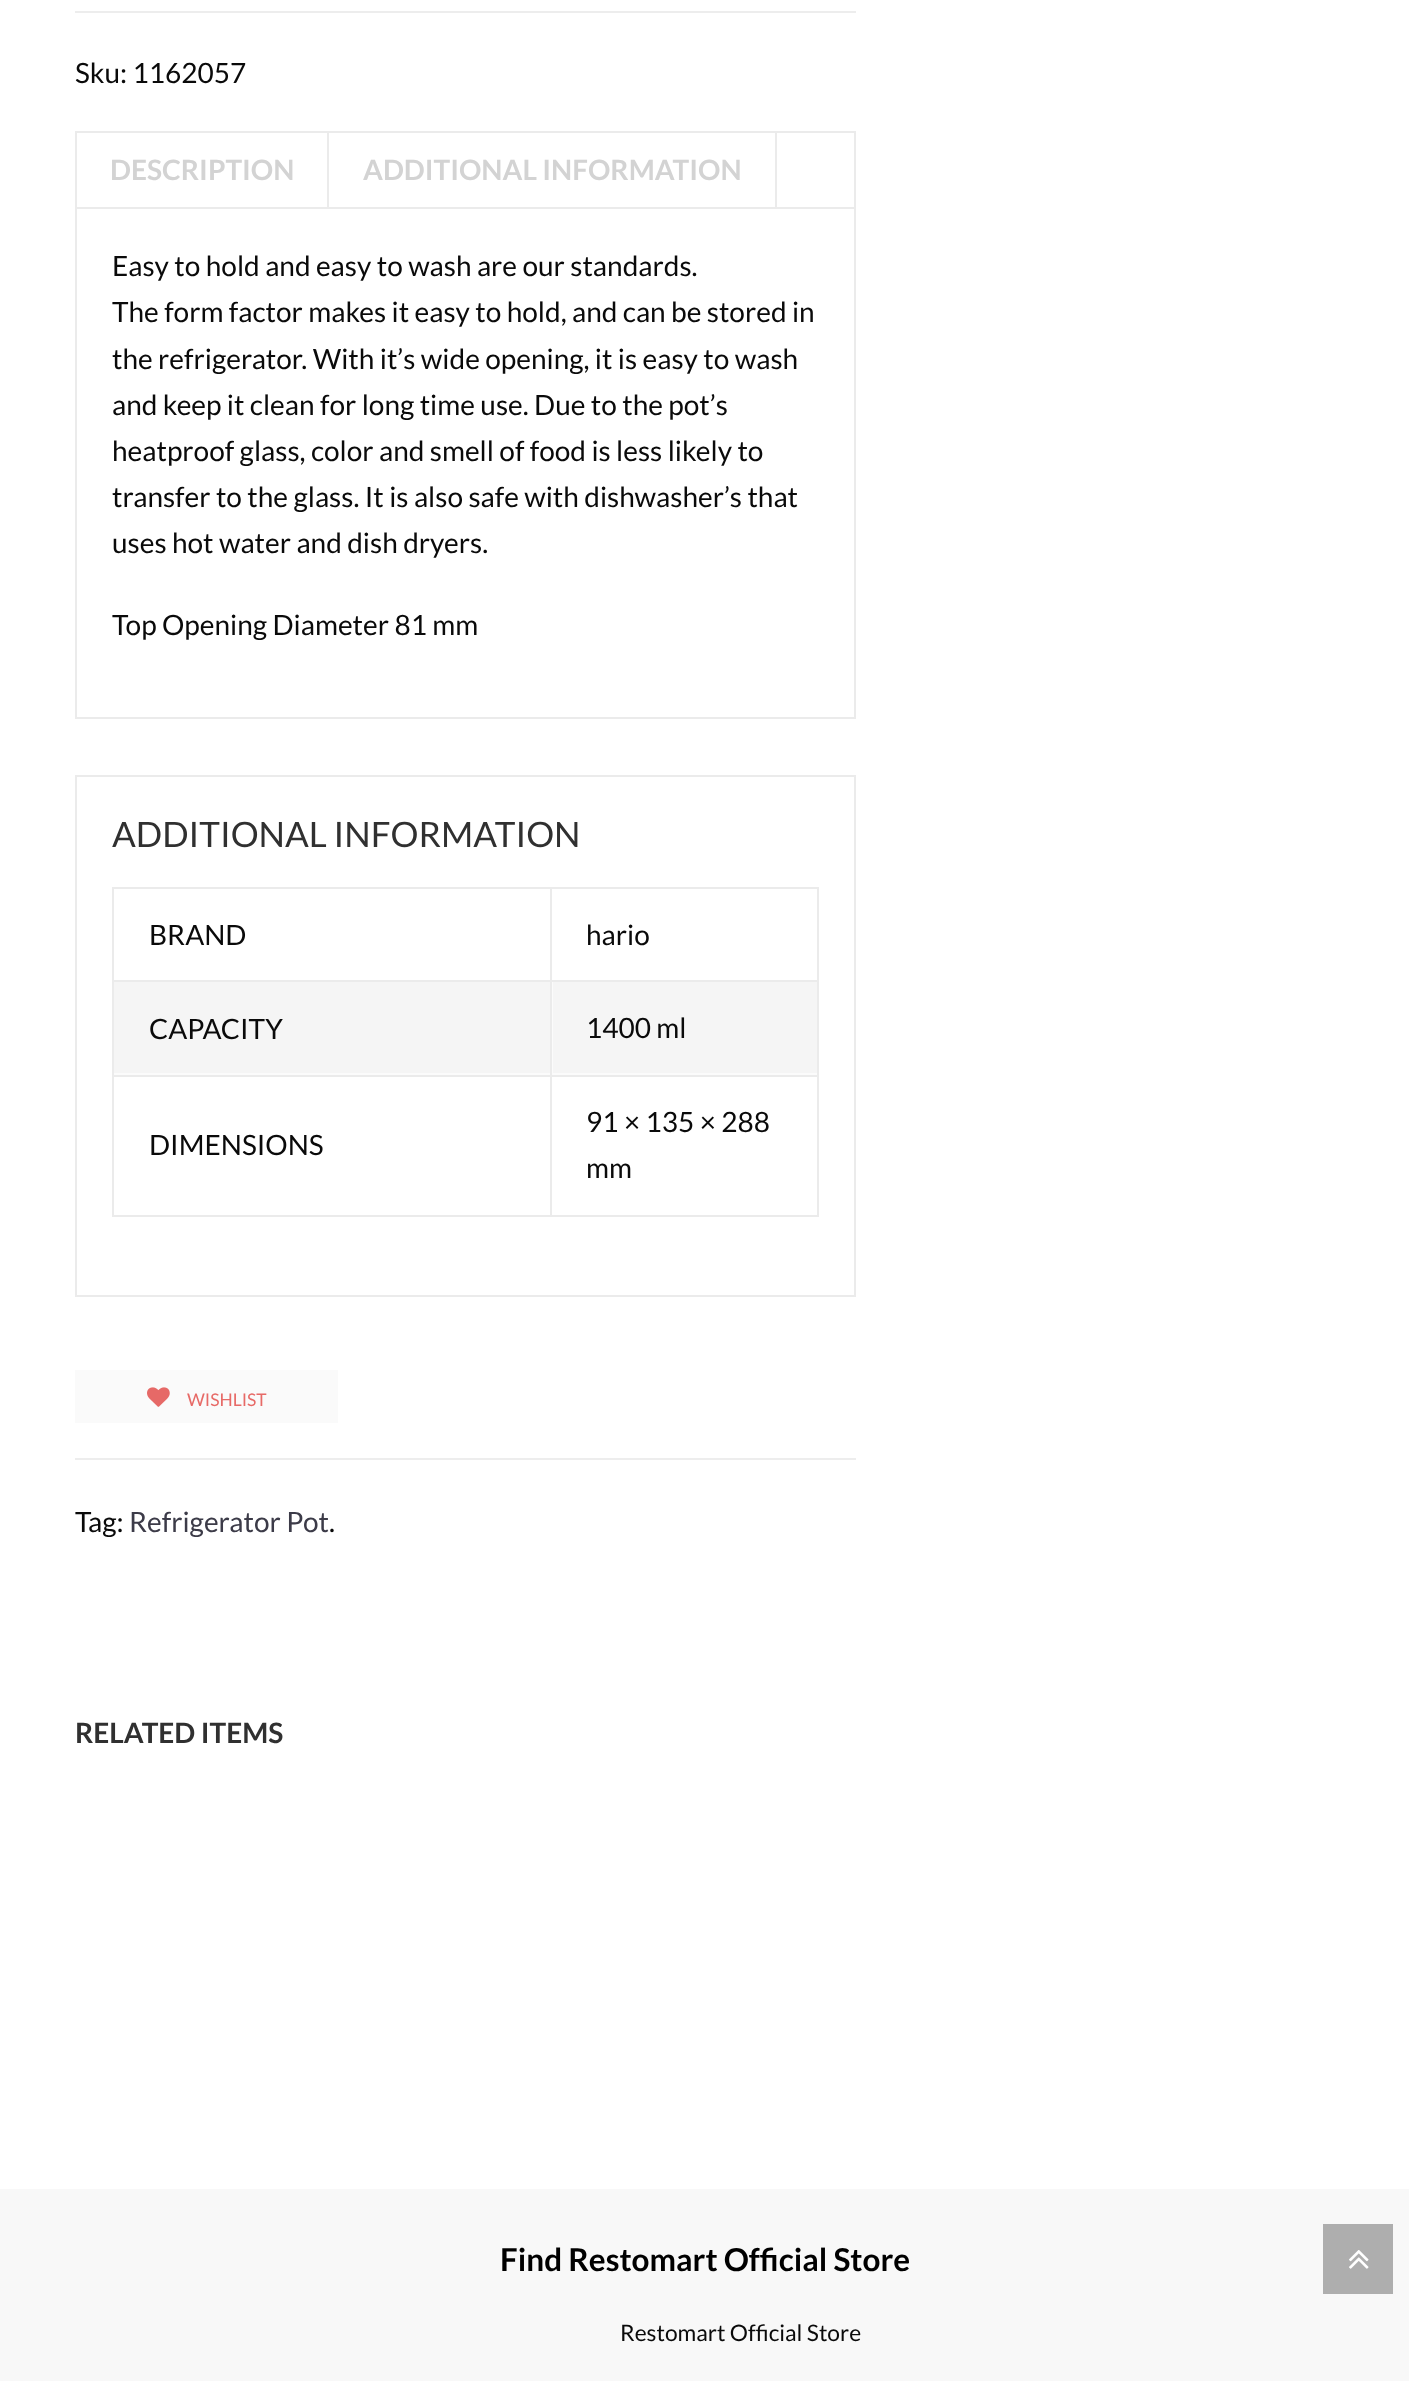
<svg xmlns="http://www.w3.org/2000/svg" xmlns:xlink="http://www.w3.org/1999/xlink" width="1409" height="2381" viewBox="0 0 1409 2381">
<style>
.cls-1{font:28px Lato;fill:#0a0a0a}
.cls-2{font:bold 28px Lato;fill:#d3d3d3}
.cls-3{font:35px Lato;fill:#303030}
.cls-4{font:17.5px Lato;fill:#e76a67}
.cls-5{font:28px Lato;fill:#3c3b48}
.cls-6{font:bold 28px Lato;fill:#303030}
.cls-7{font:bold 31.5px Lato;fill:#000000}
.cls-8{font:22.75px Lato;fill:#0a0a0a}
</style>
<rect width="100%" height="100%" fill="#ffffff"/>
<rect fill="#ededed" x="75" y="11" width="781" height="2"/>
<rect fill="#ebebeb" x="75" y="131" width="781" height="2"/>
<rect fill="#ebebeb" x="854" y="131" width="2" height="76"/>
<rect fill="#ebebeb" x="75" y="131" width="2" height="76"/>
<rect fill="none" stroke="#ebebeb" stroke-width="2" x="76" y="208" width="779" height="510"/>
<rect fill="#ebebeb" x="327" y="133" width="2" height="75"/>
<rect fill="#ebebeb" x="775" y="133" width="2" height="75"/>
<rect fill="none" stroke="#ebebeb" stroke-width="2" x="76" y="776" width="779" height="520"/>
<rect fill="#ebebeb" x="112" y="887" width="707" height="2"/>
<rect fill="#ebebeb" x="817" y="887" width="2" height="329"/>
<rect fill="#ebebeb" x="112" y="1215" width="707" height="2"/>
<rect fill="#ebebeb" x="112" y="887" width="2" height="329"/>
<rect fill="#fbfbfb" x="114" y="982" width="703" height="93"/>
<rect fill="#ebebeb" x="550" y="1075" width="2" height="141"/>
<rect fill="#ebebeb" x="550" y="1075" width="269" height="2"/>
<rect fill="#ebebeb" x="550" y="980" width="2" height="96"/>
<rect fill="#ebebeb" x="550" y="980" width="269" height="2"/>
<rect fill="#ebebeb" x="550" y="887" width="2" height="95"/>
<rect fill="#ebebeb" x="112" y="980" width="439" height="2"/>
<rect fill="#f5f5f5" x="114" y="982" width="436" height="91"/>
<rect fill="#ebebeb" x="112" y="1075" width="439" height="2"/>
<rect fill="#f5f5f5" x="553" y="982" width="264" height="91"/>
<rect fill="#fafafa" x="75" y="1370" width="263" height="53"/>
<image xlink:href="image0.png" x="147" y="1387" width="23" height="20"/>
<rect fill="#ededed" x="75" y="1458" width="781" height="2"/>
<rect fill="#f8f8f8" x="0" y="2189" width="1409" height="192"/>
<rect fill="#aeaeae" x="1323" y="2224" width="70" height="70"/>
<image xlink:href="image1.png" x="1349" y="2250" width="20" height="19"/>
<text class="cls-1" x="75" y="83">Sku: 1162057</text>
<text class="cls-2" x="110" y="180">DESCRIPTION</text>
<text class="cls-2" x="363" y="180">ADDITIONAL INFORMATION</text>
<text class="cls-1"><tspan x="112" y="276">Easy to hold and easy to wash are our standards.</tspan><tspan x="112" y="322">The form factor makes it easy to hold, and can be stored in</tspan><tspan x="112" y="369">the refrigerator. With it’s wide opening, it is easy to wash</tspan><tspan x="112" y="415">and keep it clean for long time use. Due to the pot’s</tspan><tspan x="112" y="461">heatproof glass, color and smell of food is less likely to</tspan><tspan x="112" y="507">transfer to the glass. It is also safe with dishwasher’s that</tspan><tspan x="112" y="553">uses hot water and dish dryers.</tspan></text>
<text class="cls-1" x="112" y="635">Top Opening Diameter 81 mm</text>
<text class="cls-3" x="112" y="847">ADDITIONAL INFORMATION</text>
<text class="cls-1" x="149" y="945">BRAND</text>
<text class="cls-1" x="586" y="945">hario</text>
<text class="cls-1" x="149" y="1039">CAPACITY</text>
<text class="cls-1" x="586" y="1038">1400 ml</text>
<text class="cls-1" x="149" y="1155">DIMENSIONS</text>
<text class="cls-1"><tspan x="586" y="1132">91 × 135 × 288</tspan><tspan x="586" y="1178">mm</tspan></text>
<text class="cls-4" x="187" y="1406">WISHLIST</text>
<text class="cls-1" x="75" y="1532">Tag:</text>
<text class="cls-5" x="129" y="1532">Refrigerator Pot</text>
<text class="cls-1" x="329" y="1532">.</text>
<text class="cls-6" x="75" y="1743">RELATED ITEMS</text>
<text class="cls-7" x="500" y="2271">Find Restomart Official Store</text>
<text class="cls-8" x="620" y="2341">Restomart Official Store</text>
</svg>
